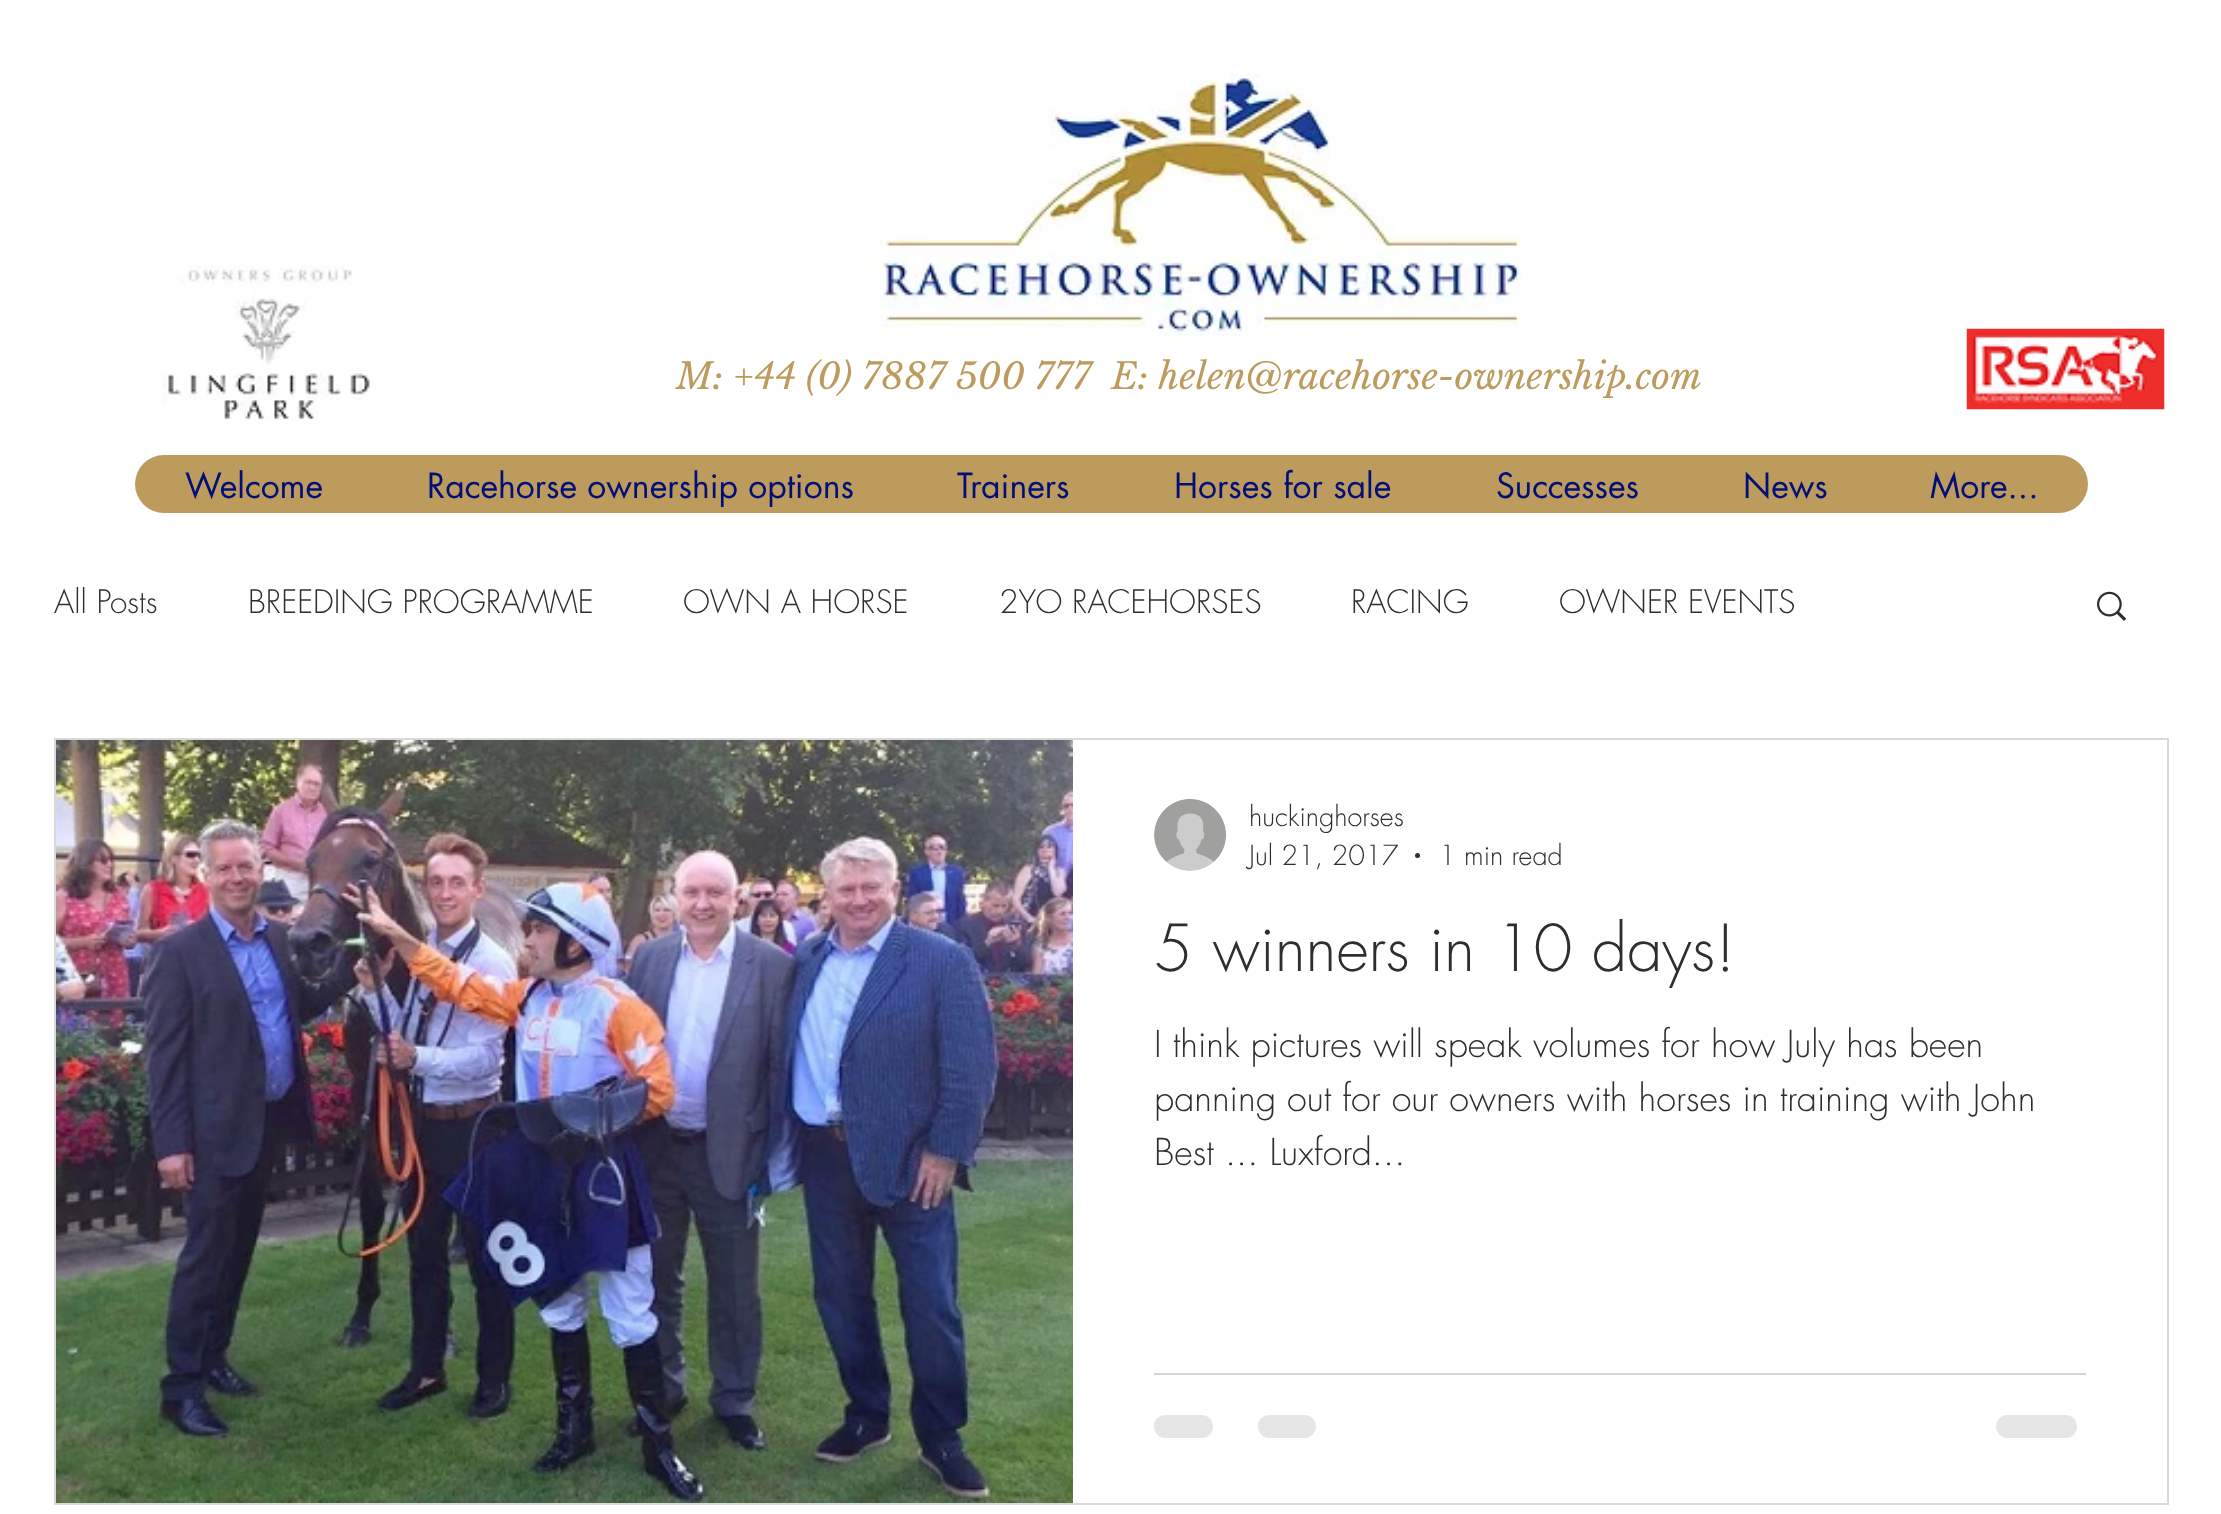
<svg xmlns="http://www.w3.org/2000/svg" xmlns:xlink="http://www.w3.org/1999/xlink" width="2221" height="1514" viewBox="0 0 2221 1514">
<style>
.cls-1{font:italic 36px Libre Baskerville;fill:#bc9b5d}
.cls-2{font:33.75px futura;fill:#020f78}
.cls-3{font:300 31.5px futura;fill:#2f2e2e}
.cls-4{font:300 27px futura;fill:#2f2e2e}
.cls-5{font:300 63px futura;fill:#2f2e2e}
.cls-6{font:300 36px futura;fill:#2f2e2e}
</style>
<rect width="100%" height="100%" fill="#ffffff"/>
<image xlink:href="image0.png" x="162" y="266" width="208" height="154"/>
<image xlink:href="image1.png" x="872" y="73" width="649" height="269"/>
<image xlink:href="image2.png" x="1966" y="328" width="199" height="82"/>
<rect fill="#bc9b5d" x="135" y="455" width="1953" height="58" rx="29"/>
<image xlink:href="image3.png" x="2097" y="591" width="29" height="30"/>
<rect fill="none" stroke="#d9d9d9" stroke-width="2" x="55" y="739" width="2113" height="765"/>
<image xlink:href="image4.png" x="56" y="740" width="1017" height="763"/>
<image xlink:href="image5.png" x="1154" y="799" width="72" height="72"/>
<circle fill="#2f2e2e" cx="1417.5" cy="855.5" r="2.5"/>
<rect fill="#d5d5d5" x="1154" y="1373" width="932" height="2"/>
<rect fill="#e6e6e6" x="1154" y="1415" width="59" height="23" rx="11.5"/>
<rect fill="#e6e6e6" x="1258" y="1415" width="58" height="23" rx="11.5"/>
<rect fill="#e6e6e6" x="1996" y="1415" width="81" height="23" rx="11.5"/>
<text class="cls-1" xml:space="preserve" x="676" y="389">M: +44 (0) 7887 500 777  E: helen@racehorse-ownership.com</text>
<text class="cls-2" x="185" y="498">Welcome</text>
<text class="cls-2" x="427" y="498">Racehorse ownership options</text>
<text class="cls-2" x="957" y="498">Trainers</text>
<text class="cls-2" x="1174" y="498">Horses for sale</text>
<text class="cls-2" x="1496" y="498">Successes</text>
<text class="cls-2" x="1743" y="498">News</text>
<text class="cls-2" x="1930" y="498">More...</text>
<text class="cls-3" x="54" y="613">All Posts</text>
<text class="cls-3" x="248" y="613">BREEDING PROGRAMME</text>
<text class="cls-3" x="683" y="613">OWN A HORSE</text>
<text class="cls-3" x="999" y="613">2YO RACEHORSES</text>
<text class="cls-3" x="1351" y="613">RACING</text>
<text class="cls-3" x="1559" y="613">OWNER EVENTS</text>
<text class="cls-4"><tspan x="1249" y="826">huckinghorses</tspan><tspan x="1249" y="865">Jul 21, 2017</tspan></text>
<text class="cls-4" x="1439" y="865">1 min read</text>
<text class="cls-5" x="1154" y="971">5 winners in 10 days!</text>
<text class="cls-6"><tspan x="1154" y="1057">I think pictures will speak volumes for how July has been</tspan><tspan x="1154" y="1111">panning out for our owners with horses in training with John</tspan><tspan x="1154" y="1165">Best ... Luxford...</tspan></text>
</svg>
